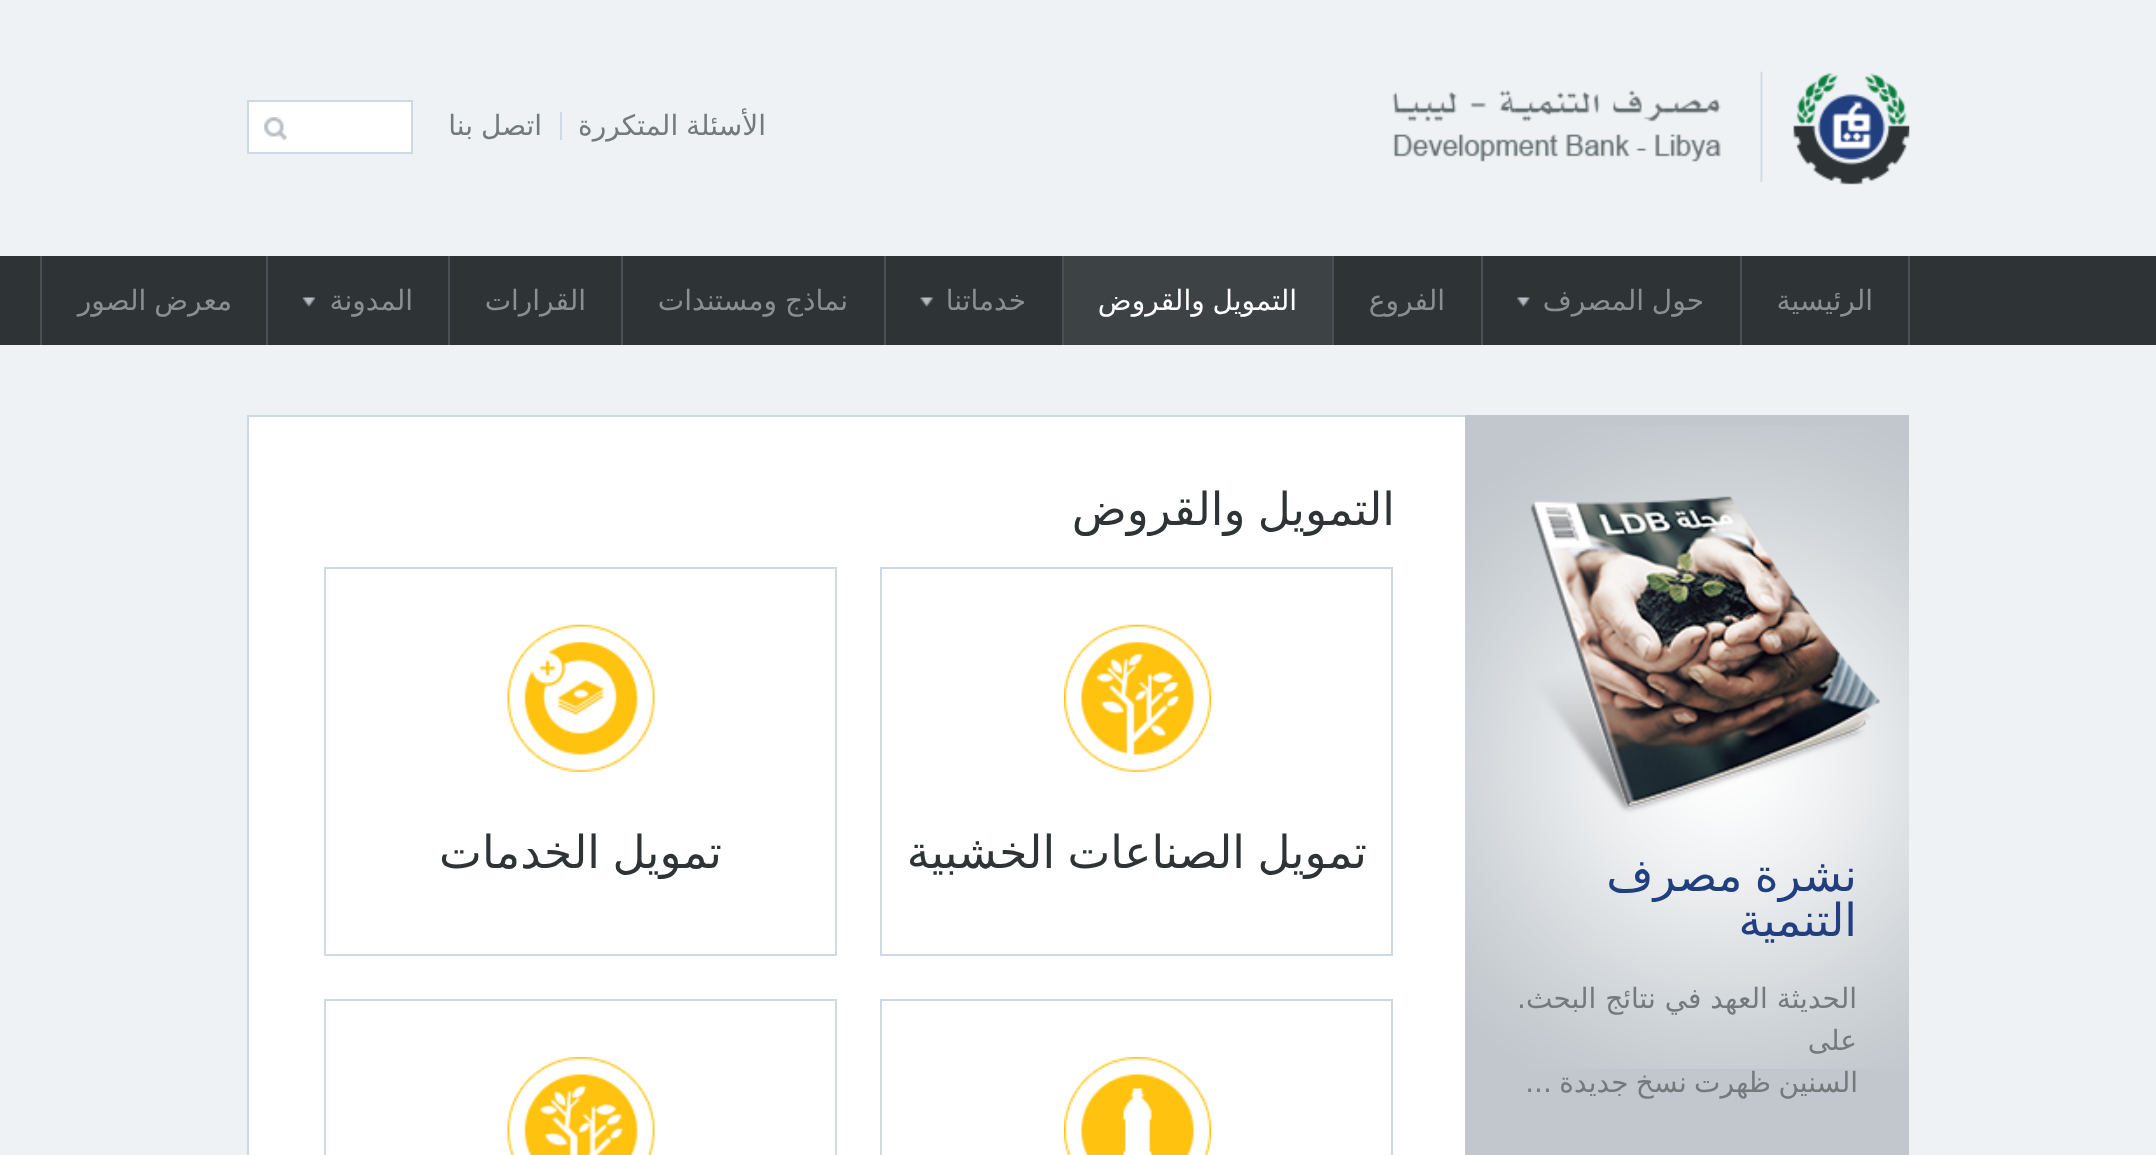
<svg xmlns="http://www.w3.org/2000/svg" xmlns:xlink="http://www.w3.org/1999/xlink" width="2156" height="1155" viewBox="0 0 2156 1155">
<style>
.cls-1{font:28px DejaVu Sans;direction:rtl;fill:#737a7c}
.cls-2{font:28px DejaVu Sans;direction:rtl;fill:#8a9091}
.cls-3{font:28px DejaVu Sans;direction:rtl;fill:#ffffff}
.cls-4{font:45.5px DejaVu Sans;direction:rtl;fill:#2e3335}
.cls-5{font:45.5px DejaVu Sans;direction:rtl;fill:#213e7f}
</style>
<rect width="100%" height="100%" fill="#eef2f5"/>
<image xlink:href="image0.png" x="1392" y="71" width="518" height="114"/>
<rect fill="#cfd9e3" x="560" y="112" width="2" height="28"/>
<rect fill="#ffffff" stroke="#cfd9e3" stroke-width="2" x="248" y="101" width="164" height="52"/>
<image xlink:href="image1.png" x="264" y="117" width="23" height="23"/>
<rect fill="#2e3335" x="0" y="256" width="2156" height="89"/>
<rect fill="#4a5154" x="1908" y="256" width="2" height="89"/>
<rect fill="#4a5154" x="1740" y="256" width="2" height="89"/>
<rect fill="#4a5154" x="1481" y="256" width="2" height="89"/>
<image xlink:href="image2.png" x="1517" y="297" width="13" height="10"/>
<rect fill="#4a5154" x="1332" y="256" width="2" height="89"/>
<rect fill="#3d4345" x="1064" y="256" width="268" height="89"/>
<rect fill="#4a5154" x="1062" y="256" width="2" height="89"/>
<rect fill="#4a5154" x="884" y="256" width="2" height="89"/>
<image xlink:href="image3.png" x="920" y="297" width="13" height="10"/>
<rect fill="#4a5154" x="621" y="256" width="2" height="89"/>
<rect fill="#4a5154" x="448" y="256" width="2" height="89"/>
<rect fill="#4a5154" x="266" y="256" width="2" height="89"/>
<image xlink:href="image4.png" x="302" y="297" width="13" height="10"/>
<rect fill="#4a5154" x="40" y="256" width="2" height="89"/>
<rect fill="#ffffff" x="249" y="417" width="1216" height="738"/>
<rect fill="#cfd9e3" x="247" y="415" width="1218" height="2"/>
<rect fill="#cfd9e3" x="247" y="415" width="2" height="740"/>
<rect fill="none" stroke="#cfd9e3" stroke-width="2" x="881" y="568" width="511" height="387"/>
<image xlink:href="image5.png" x="1064" y="624" width="147" height="148"/>
<rect fill="none" stroke="#cfd9e3" stroke-width="2" x="325" y="568" width="511" height="387"/>
<image xlink:href="image6.png" x="507" y="624" width="148" height="148"/>
<rect fill="none" stroke="#cfd9e3" stroke-width="2" x="881" y="1000" width="511" height="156"/>
<image xlink:href="image7.png" x="1064" y="1057" width="147" height="98"/>
<rect fill="none" stroke="#cfd9e3" stroke-width="2" x="325" y="1000" width="511" height="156"/>
<image xlink:href="image8.png" x="507" y="1057" width="148" height="98"/>
<rect fill="#c1c7cc" x="1465" y="415" width="444" height="740"/>
<image xlink:href="image9.png" x="1465" y="426" width="444" height="643"/>
<text class="cls-1" x="766" y="135" word-spacing="-1">الأسئلة المتكررة</text>
<text class="cls-1" x="542" y="135" word-spacing="-1">اتصل بنا</text>
<text class="cls-2" x="1873" y="310">الرئیسیة</text>
<text class="cls-2" x="1704" y="310" word-spacing="-1">حول المصرف</text>
<text class="cls-2" x="1445" y="310">الفروع</text>
<text class="cls-3" x="1297" y="310" word-spacing="-1">التمويل والقروض</text>
<text class="cls-2" x="1026" y="310">خدماتنا</text>
<text class="cls-2" x="848" y="310" word-spacing="-1">نماذج ومستندات</text>
<text class="cls-2" x="586" y="310">القرارات</text>
<text class="cls-2" x="413" y="310">المدونة</text>
<text class="cls-2" x="232" y="310" word-spacing="-1">معرض الصور</text>
<text class="cls-4" x="1395" y="525" word-spacing="-2">التمويل والقروض</text>
<text class="cls-4" x="1367" y="868" word-spacing="-2">تمويل الصناعات الخشبية</text>
<text class="cls-4" x="722" y="868" word-spacing="-2">تمويل الخدمات</text>
<text class="cls-5"><tspan x="1857" y="891" word-spacing="-2">نشرة مصرف</tspan><tspan x="1857" y="936">التنمیة</tspan></text>
<text class="cls-1"><tspan x="1857" y="1008">الحديثة العهد في نتائج البحث.</tspan><tspan x="1857" y="1050">على</tspan></text>
<text class="cls-1" x="1858" y="1092" word-spacing="-1.5">السنين ظهرت نسخ جديدة ...</text>
</svg>
